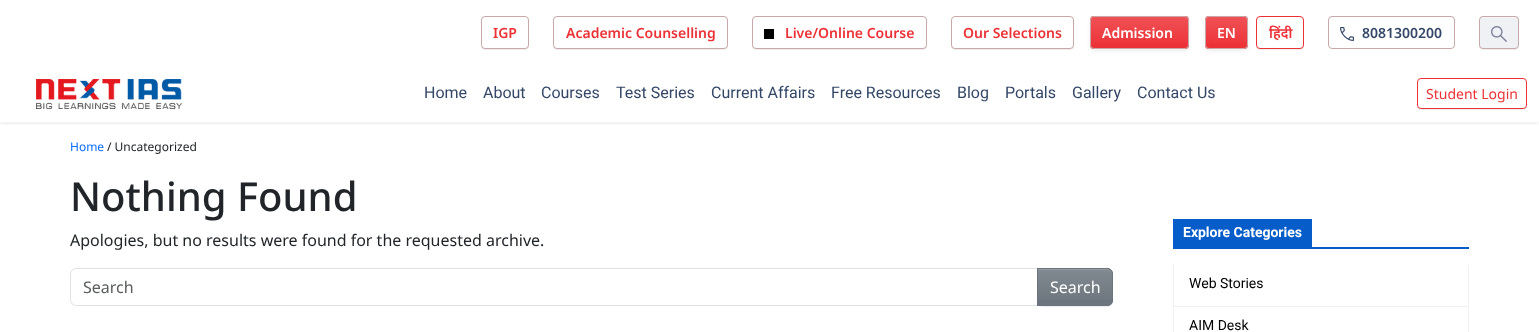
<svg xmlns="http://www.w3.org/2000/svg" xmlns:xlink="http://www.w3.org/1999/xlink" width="1539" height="332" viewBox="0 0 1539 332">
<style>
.cls-1{font:600 14px Noto Sans;fill:#ed3237}
.cls-2{font:600 14px Noto Sans;fill:#ffffff}
.cls-3{font:600 14px Noto Sans;fill:#344767}
.cls-4{font:16px Roboto;fill:#344767}
.cls-5{font:14px Noto Sans;fill:#ed3237}
.cls-6{font:12px Noto Sans;fill:#0d6efd}
.cls-7{font:12px Noto Sans;fill:#212529}
.cls-8{font:500 40px Noto Sans;fill:#212529}
.cls-9{font:16px Noto Sans;fill:#212529}
.cls-10{font:16px Noto Sans;fill:#595c5f}
.cls-11{font:16px Noto Sans;fill:#ffffff}
.cls-12{font:bold 14px Roboto;fill:#ffffff}
.cls-13{font:14px Roboto;fill:#000000}
</style>
<defs>
<clipPath id="clip1"><rect x="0" y="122" width="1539" height="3"/></clipPath>
<linearGradient id="g1" gradientUnits="userSpaceOnUse" x1="1140" y1="17" x2="1140" y2="48"><stop offset="0" stop-color="#ffffff" stop-opacity="0.15"/><stop offset="1" stop-color="#ffffff" stop-opacity="0"/></linearGradient>
<linearGradient id="g2" gradientUnits="userSpaceOnUse" x1="1227" y1="17" x2="1227" y2="48"><stop offset="0" stop-color="#ffffff" stop-opacity="0.15"/><stop offset="1" stop-color="#ffffff" stop-opacity="0"/></linearGradient>
<clipPath id="clip2"><path d="M1037 268H1107C1110.5 268 1113 270.5 1113 274V300C1113 303.5 1110.5 306 1107 306H1037Z"/></clipPath>
<linearGradient id="g3" gradientUnits="userSpaceOnUse" x1="1075" y1="269" x2="1075" y2="305"><stop offset="0" stop-color="#ffffff" stop-opacity="0.15"/><stop offset="1" stop-color="#ffffff" stop-opacity="0"/></linearGradient>
</defs>
<rect width="100%" height="100%" fill="#ffffff"/>
<g clip-path="url(#clip1)">
<rect fill="#000000" fill-opacity="0.07" filter="blur(2px)" x="0" y="2" width="1539" height="122"/>
</g>
<rect fill="#000000" fill-opacity="0.07" filter="blur(0.5px)" x="481" y="17" width="48" height="33" rx="4"/>
<rect fill="#ffffff" stroke="#c8a8a8" x="481.5" y="16.5" width="47" height="32" rx="3.5"/>
<rect fill="#000000" fill-opacity="0.07" filter="blur(0.5px)" x="553" y="17" width="175" height="33" rx="4"/>
<rect fill="#ffffff" stroke="#c8a8a8" x="553.5" y="16.5" width="174" height="32" rx="3.5"/>
<rect fill="#000000" fill-opacity="0.07" filter="blur(0.5px)" x="752" y="17" width="175" height="33" rx="4"/>
<rect fill="#ffffff" stroke="#c8a8a8" x="752.5" y="16.5" width="174" height="32" rx="3.5"/>
<rect fill="#000000" x="764" y="29" width="10" height="10"/>
<rect fill="#000000" fill-opacity="0.07" filter="blur(0.5px)" x="951" y="17" width="123" height="33" rx="4"/>
<rect fill="#ffffff" stroke="#c8a8a8" x="951.5" y="16.5" width="122" height="32" rx="3.5"/>
<rect fill="#000000" fill-opacity="0.07" filter="blur(2px)" x="1090" y="18" width="99" height="33" rx="4"/>
<rect fill="#ed3237" x="1090" y="16" width="99" height="33" rx="4"/>
<rect fill="url(#g1)" x="1090" y="17" width="99" height="27"/>
<rect fill="none" stroke="#c8a8a8" x="1090.5" y="16.5" width="98" height="32" rx="3.5"/>
<rect fill="#000000" fill-opacity="0.07" filter="blur(2px)" x="1205" y="18" width="43" height="33" rx="4"/>
<rect fill="#ed3237" x="1205" y="16" width="43" height="33" rx="4"/>
<rect fill="url(#g2)" x="1205" y="17" width="43" height="27"/>
<rect fill="none" stroke="#c8a8a8" x="1205.5" y="16.5" width="42" height="32" rx="3.5"/>
<rect fill="#000000" fill-opacity="0.07" filter="blur(0.5px)" x="1256" y="17" width="48" height="33" rx="4"/>
<rect fill="#ffffff" stroke="#ed3237" x="1256.5" y="16.5" width="47" height="32" rx="3.5"/>
<rect fill="none" stroke="#c8a8a8" x="1328.5" y="16.5" width="126" height="32" rx="3.5"/>
<image xlink:href="image0.png" x="1340" y="27" width="14" height="14"/>
<rect fill="#000000" fill-opacity="0.07" filter="blur(0.5px)" x="1479" y="17" width="40" height="33" rx="4"/>
<rect fill="#eff1f4" x="1479" y="16" width="40" height="33" rx="4"/>
<path fill="#f3f5f7" d="M1483 18H1515C1517 18 1518 19 1518 21C1518 16 1514 17 1509.5 17H1488.5C1484 17 1480 16 1480 21C1480 19 1481 18 1483 18Z"/>
<rect fill="none" stroke="#c8a8a8" x="1479.5" y="16.5" width="39" height="32" rx="3.5"/>
<image xlink:href="image1.png" x="1491" y="26" width="16" height="16"/>
<image xlink:href="image2.png" x="36" y="79" width="146" height="30"/>
<rect fill="#000000" fill-opacity="0.07" filter="blur(0.5px)" x="1417" y="79" width="110" height="31" rx="4"/>
<rect fill="#ffffff" stroke="#ed3237" x="1417.5" y="78.5" width="109" height="30" rx="3.5"/>
<path fill="none" stroke="#dee2e6" d="M76 268.5H1037.5V305.5H76C73 305.5 70.5 303 70.5 300V274C70.5 271 73 268.5 76 268.5Z"/>
<rect fill="#000000" fill-opacity="0.07" filter="blur(0.5px)" x="1037" y="269" width="76" height="38" rx="6"/>
<path fill="#6c757d" d="M1037 268H1107C1110.5 268 1113 270.5 1113 274V300C1113 303.5 1110.5 306 1107 306H1037Z"/>
<g clip-path="url(#clip2)">
<rect fill="url(#g3)" x="1038" y="269" width="75" height="31"/>
</g>
<path fill="#959ba1" d="M1038 270H1107C1110 270 1112 272 1112 275V274C1112 271 1110 269 1107 269H1038Z"/>
<path fill="none" stroke="#6c757d" d="M1037.5 268.5H1107C1110 268.5 1112.5 271 1112.5 274V300C1112.5 303 1110 305.5 1107 305.5H1037.5Z"/>
<rect fill="#065dc9" x="1173" y="247" width="296" height="2"/>
<rect fill="#065dc9" x="1173" y="219" width="139" height="28"/>
<rect fill="#f1f1f1" x="1468" y="265" width="1" height="67"/>
<rect fill="#f1f1f1" x="1173" y="306" width="296" height="1"/>
<rect fill="#f1f1f1" x="1173" y="265" width="1" height="67"/>
<text class="cls-1" x="493" y="38">IGP</text>
<text class="cls-1" x="566" y="38">Academic Counselling</text>
<text class="cls-1" x="785" y="38">Live/Online Course</text>
<text class="cls-1" x="963" y="38">Our Selections</text>
<text class="cls-2" x="1102" y="38">Admission</text>
<text class="cls-2" x="1217" y="38">EN</text>
<text class="cls-1" x="1269" y="38">हिंदी</text>
<text class="cls-3" x="1362" y="38">8081300200</text>
<text class="cls-4" x="424" y="98">Home</text>
<text class="cls-4" x="483" y="98">About</text>
<text class="cls-4" x="541" y="98">Courses</text>
<text class="cls-4" x="616" y="98">Test Series</text>
<text class="cls-4" x="711" y="98">Current Affairs</text>
<text class="cls-4" x="831" y="98">Free Resources</text>
<text class="cls-4" x="957" y="98">Blog</text>
<text class="cls-4" x="1005" y="98">Portals</text>
<text class="cls-4" x="1072" y="98">Gallery</text>
<text class="cls-4" x="1137" y="98">Contact Us</text>
<text class="cls-5" x="1426" y="99">Student Login</text>
<text class="cls-6" x="70" y="151">Home</text>
<text class="cls-7" x="107" y="151">/ Uncategorized</text>
<text class="cls-8" x="70" y="211">Nothing Found</text>
<text class="cls-9" x="70" y="246">Apologies, but no results were found for the requested archive.</text>
<text class="cls-10" x="83" y="293">Search</text>
<text class="cls-11" x="1050" y="293">Search</text>
<text class="cls-12" x="1183" y="237">Explore Categories</text>
<text class="cls-13" x="1189" y="288">Web Stories</text>
<text class="cls-13" x="1189" y="330">AIM Desk</text>
</svg>
